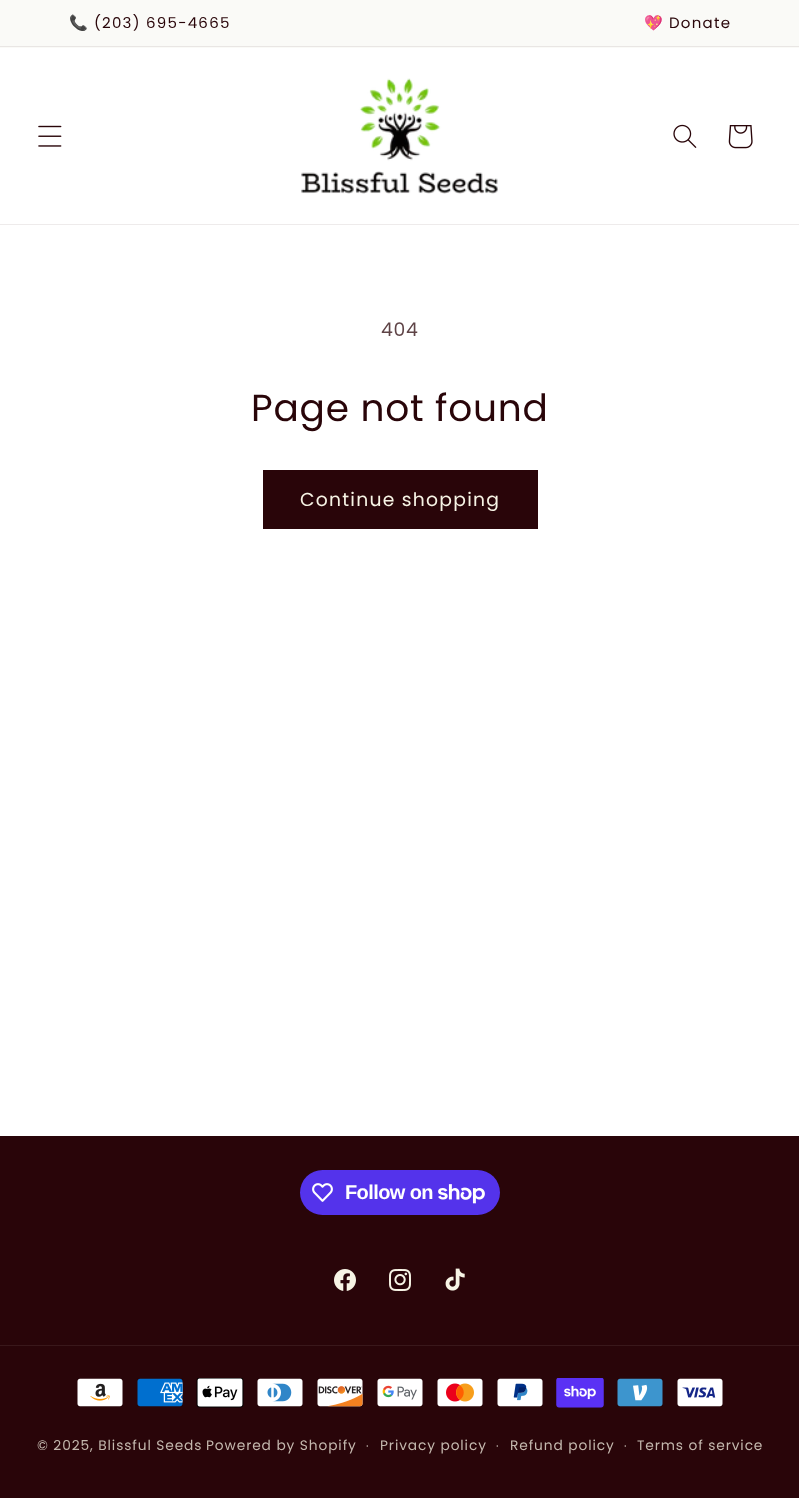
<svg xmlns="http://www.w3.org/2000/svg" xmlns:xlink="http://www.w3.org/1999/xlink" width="799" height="1498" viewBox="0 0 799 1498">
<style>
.cls-1{font:15px Noto Color Emoji;letter-spacing:1.25px;fill:#290509}
.cls-2{font:15px Poppins;letter-spacing:1.25px;fill:#290509}
.cls-3{font:18.75px Poppins;letter-spacing:0.75px;fill:#5f4447}
.cls-4{font:37.5px Poppins;letter-spacing:0.75px;fill:#290509}
.cls-5{font:18.75px Poppins;letter-spacing:1.25px;fill:#f7f4e5}
.cls-6{font:bold 20px Liberation Sans;letter-spacing:-0.6px;fill:#ffffff}
.cls-7{font:13.75px Poppins;letter-spacing:0.9px;fill:#c4b8ae}
.cls-8{font:12px Poppins;letter-spacing:0.9px;fill:#c4b8ae}
</style>
<rect width="100%" height="100%" fill="#ffffff"/>
<rect fill="#fafaf7" x="0" y="0" width="799" height="48"/>
<rect fill="#e9e6e4" x="0" y="46" width="799" height="1"/>
<rect fill="#eeebeb" x="0" y="224" width="799" height="1"/>
<image xlink:href="image0.png" x="38" y="125" width="24" height="22"/>
<image xlink:href="image1.png" x="301" y="78" width="198" height="116"/>
<image xlink:href="image2.png" x="673" y="124" width="24" height="24"/>
<image xlink:href="image3.png" x="728" y="125" width="25" height="24"/>
<rect fill="#290509" x="263" y="470" width="275" height="59"/>
<rect fill="#290509" x="0" y="1136" width="799" height="362"/>
<rect fill="#5433eb" x="300" y="1170" width="200" height="45" rx="22.5"/>
<image xlink:href="image4.png" x="312" y="1183" width="21" height="19"/>
<image xlink:href="image5.png" x="438" y="1184" width="47" height="20"/>
<image xlink:href="image6.png" x="334" y="1269" width="22" height="22"/>
<image xlink:href="image7.png" x="389" y="1269" width="22" height="22"/>
<image xlink:href="image8.png" x="445" y="1268" width="20" height="23"/>
<rect fill="#39181b" x="0" y="1345" width="799" height="1"/>
<image xlink:href="image9.png" x="77" y="1378" width="46" height="29"/>
<image xlink:href="image10.png" x="137" y="1378" width="46" height="29"/>
<image xlink:href="image11.png" x="196" y="1378" width="48" height="30"/>
<image xlink:href="image12.png" x="257" y="1378" width="46" height="29"/>
<image xlink:href="image13.png" x="317" y="1378" width="46" height="29"/>
<image xlink:href="image14.png" x="377" y="1378" width="46" height="29"/>
<image xlink:href="image15.png" x="437" y="1378" width="46" height="29"/>
<image xlink:href="image16.png" x="497" y="1378" width="46" height="29"/>
<image xlink:href="image17.png" x="556" y="1378" width="48" height="30"/>
<image xlink:href="image18.png" x="617" y="1378" width="46" height="29"/>
<image xlink:href="image19.png" x="677" y="1378" width="46" height="29"/>
<text class="cls-1" x="69" y="28">📞</text>
<text class="cls-2" x="94" y="28">(203) 695-4665</text>
<text class="cls-1" x="644" y="28">💖</text>
<text class="cls-2" x="669" y="28">Donate</text>
<text class="cls-3" x="381" y="336">404</text>
<text class="cls-4" x="251" y="421">Page not found</text>
<text class="cls-5" x="300" y="506">Continue shopping</text>
<text class="cls-6" x="345" y="1199">Follow on</text>
<text class="cls-7" x="37" y="1450">© 2025, Blissful Seeds</text>
<text class="cls-7" x="206" y="1450">Powered by Shopify</text>
<text class="cls-8" x="366" y="1450">·</text>
<text class="cls-7" x="380" y="1450">Privacy policy</text>
<text class="cls-8" x="496" y="1450">·</text>
<text class="cls-7" x="510" y="1450">Refund policy</text>
<text class="cls-8" x="624" y="1450">·</text>
<text class="cls-7" x="637" y="1450">Terms of service</text>
</svg>
